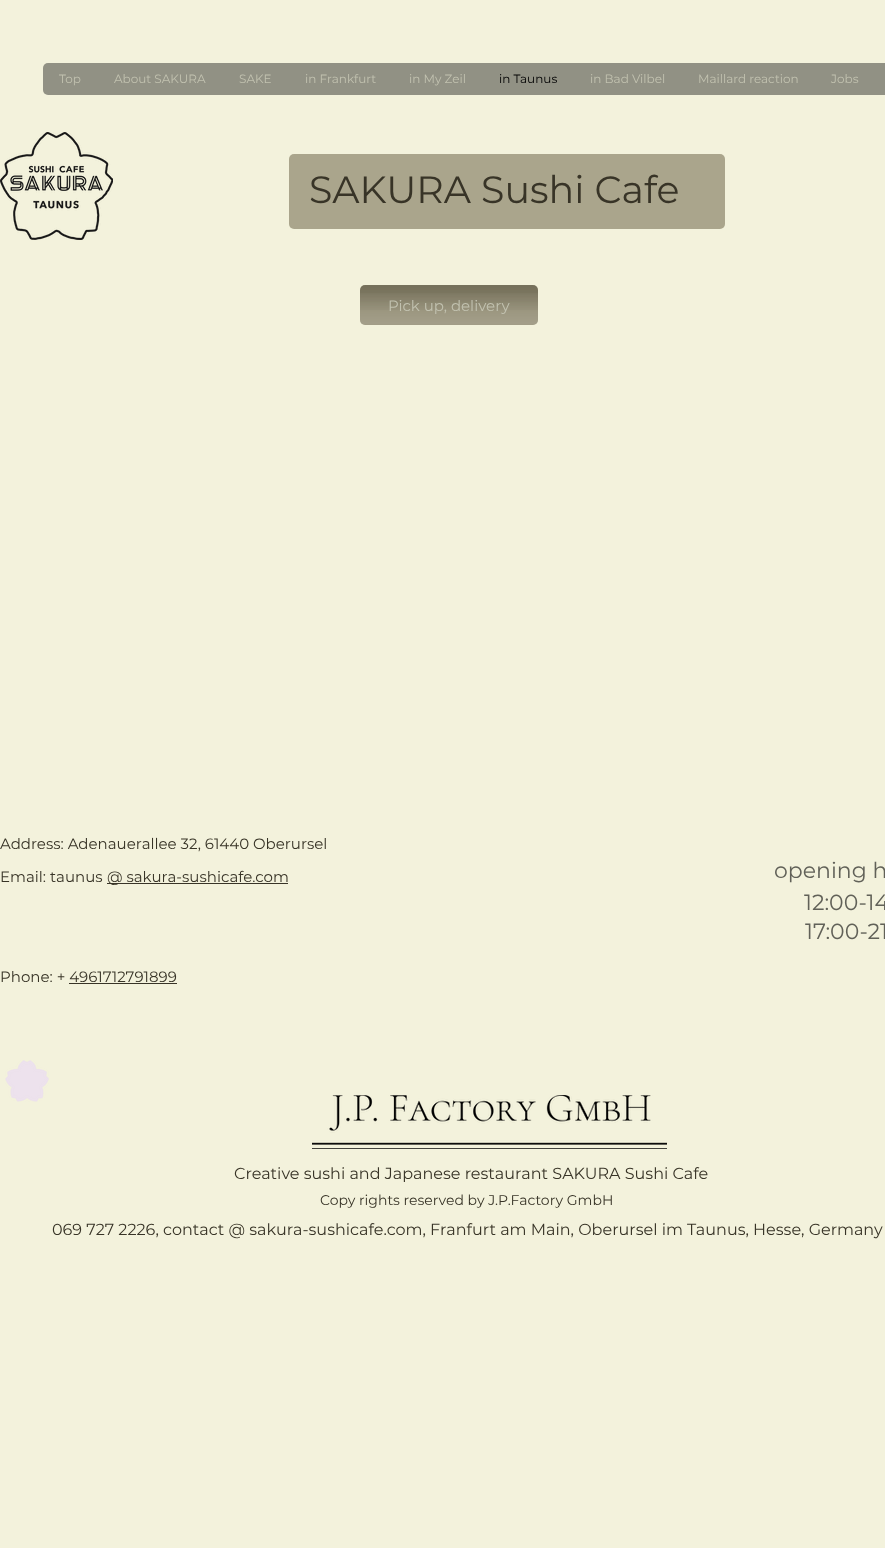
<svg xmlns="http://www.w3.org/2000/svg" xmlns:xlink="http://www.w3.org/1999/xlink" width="885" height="1548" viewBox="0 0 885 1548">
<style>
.cls-1{font:12px Montserrat;fill:#c2c2b0}
.cls-2{font:12px Montserrat;fill:#000000}
.cls-3{font:38px Montserrat;fill:#383427}
.cls-4{font:15px Montserrat;fill:#c2c2b0}
.cls-5{font:15px Montserrat;fill:#383427}
.cls-6{font:22px Montserrat;fill:#616158}
.cls-7{font:16px Montserrat;fill:#383427}
.cls-8{font:14px Montserrat;fill:#383427}
</style>
<rect width="100%" height="100%" fill="#f3f2dc"/>
<rect fill="#919184" x="43" y="63" width="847" height="32" rx="5"/>
<image xlink:href="image0.png" x="0" y="132" width="113" height="108"/>
<rect fill="#aaa58c" x="289" y="154" width="436" height="75" rx="5"/>
<rect fill="#8d876d" x="360" y="285" width="178" height="40" rx="5"/>
<image xlink:href="image1.png" x="360" y="285" width="178" height="25"/>
<image xlink:href="image2.png" x="360" y="293" width="178" height="32"/>
<rect fill="#383427" x="107" y="883" width="181" height="1"/>
<rect fill="#383427" x="69" y="983" width="108" height="1"/>
<image xlink:href="image3.png" x="5" y="1060" width="44" height="42"/>
<image xlink:href="image4.png" x="312" y="1095" width="355" height="54"/>
<text class="cls-1" x="59" y="83">Top</text>
<text class="cls-1" x="114" y="83">About SAKURA</text>
<text class="cls-1" x="239" y="83">SAKE</text>
<text class="cls-1" x="305" y="83">in Frankfurt</text>
<text class="cls-1" x="409" y="83">in My Zeil</text>
<text class="cls-2" x="499" y="83">in Taunus</text>
<text class="cls-1" x="590" y="83">in Bad Vilbel</text>
<text class="cls-1" x="698" y="83">Maillard reaction</text>
<text class="cls-1" x="831" y="83">Jobs</text>
<text class="cls-3" x="309" y="203">SAKURA Sushi Cafe</text>
<text class="cls-4" x="388" y="311">Pick up, delivery</text>
<text class="cls-5" x="0" y="849">Address: Adenauerallee 32, 61440 Oberursel</text>
<text class="cls-5" x="0" y="882">Email: taunus</text>
<text class="cls-5" x="107" y="882">@ sakura-sushicafe.com</text>
<text class="cls-6" x="774" y="878">opening h</text>
<text class="cls-6" x="804" y="910">12:00-14</text>
<text class="cls-6" x="805" y="939">17:00-21</text>
<text class="cls-5" x="0" y="982">Phone: + 4961712791899</text>
<text class="cls-7" x="234" y="1179">Creative sushi and Japanese restaurant SAKURA Sushi Cafe</text>
<text class="cls-8" x="320" y="1205">Copy rights reserved by J.P.Factory GmbH</text>
<text class="cls-7" x="52" y="1235">069 727 2226, contact @ sakura-sushicafe.com, Franfurt am Main, Oberursel im Taunus, Hesse, Germany</text>
</svg>
